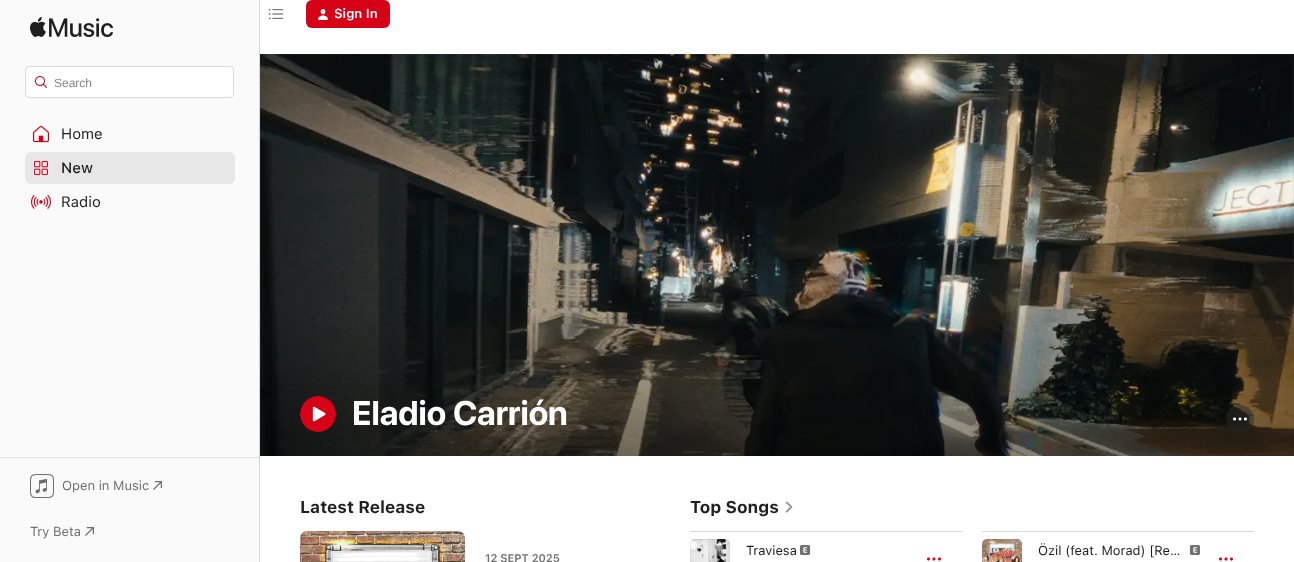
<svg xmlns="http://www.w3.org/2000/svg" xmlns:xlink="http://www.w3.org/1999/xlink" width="1294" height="562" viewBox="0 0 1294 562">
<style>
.cls-1{font:600 13px SF;fill:#ffffff}
.cls-2{font:12px Liberation Sans;fill:#858585}
.cls-3{font:15px SF;fill:#1f1f1f}
.cls-4{font:500 15px SF;fill:#1f1f1f}
.cls-5{font:13px SF;fill:#707070}
.cls-6{font:bold 34px 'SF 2';fill:#ffffff}
.cls-7{font:bold 17px SF;fill:#1f1f1f}
.cls-8{font:600 11px SF;fill:#707070}
.cls-9{font:13px SF;fill:#1f1f1f}
</style>
<defs>
<clipPath id="clip1"><rect x="260" y="54" width="1034" height="402"/></clipPath>
<linearGradient id="g1" gradientUnits="userSpaceOnUse" x1="777" y1="456" x2="777" y2="306"><stop offset="0" stop-color="#000000" stop-opacity="0.36"/><stop offset="0.36" stop-color="#000000" stop-opacity="0.25"/><stop offset="1" stop-color="#000000" stop-opacity="0"/></linearGradient>
</defs>
<rect width="100%" height="100%" fill="#ffffff"/>
<image xlink:href="image0.png" x="268" y="8" width="16" height="12"/>
<rect fill="#d60017" x="306" y="0" width="84" height="28" rx="6"/>
<image xlink:href="image1.png" x="318" y="9" width="10" height="11"/>
<rect fill="#fafafa" x="0" y="0" width="259" height="562"/>
<rect fill="#e1e1e1" x="0" y="457" width="260" height="1"/>
<rect fill="#d5d5d5" x="259" y="0" width="1" height="562"/>
<rect fill="#c0c0c0" x="259" y="457" width="1" height="1"/>
<image xlink:href="image2.png" x="30" y="17" width="83" height="20"/>
<rect fill="#ffffff" stroke="#d9d9d9" x="25.5" y="66.5" width="208" height="31" rx="3.5"/>
<image xlink:href="image3.png" x="35" y="76" width="12" height="12"/>
<image xlink:href="image4.png" x="33" y="125" width="16" height="18"/>
<rect fill="#e7e7e8" x="25" y="152" width="210" height="32" rx="6"/>
<image xlink:href="image5.png" x="34" y="161" width="14" height="14"/>
<image xlink:href="image6.png" x="31" y="195" width="20" height="14"/>
<image xlink:href="image7.png" x="30" y="474" width="24" height="24"/>
<image xlink:href="image8.png" x="153" y="481" width="9" height="9"/>
<image xlink:href="image8.png" x="85" y="527" width="9" height="9"/>
<image xlink:href="image9.png" x="260" y="54" width="1034" height="402"/>
<image xlink:href="image13.png" x="785" y="501" width="8" height="12"/>
<g clip-path="url(#clip1)">
<rect fill="none" stroke="#808080" stroke-opacity="0.1" x="260.5" y="54.5" width="1033" height="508"/>
</g>
<rect fill="url(#g1)" x="260" y="314" width="1034" height="142"/>
<image xlink:href="image10.png" x="300" y="396" width="36" height="36"/>
<circle fill="#282828" fill-opacity="0.5" cx="1240" cy="419" r="14"/>
<image xlink:href="image11.png" x="1233" y="417" width="14" height="4"/>
<image xlink:href="image12.png" x="300" y="531" width="165" height="31"/>
<rect fill="none" stroke="#808080" stroke-opacity="0.1" x="300.5" y="531.5" width="164" height="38" rx="6.5"/>
<rect fill="#d9d9d9" x="690" y="531" width="272" height="1"/>
<image xlink:href="image14.png" x="690" y="539" width="40" height="23"/>
<rect fill="none" stroke="#808080" stroke-opacity="0.1" x="690.5" y="539.5" width="39" height="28" rx="4.5"/>
<image xlink:href="image15.png" x="800" y="545" width="10" height="10"/>
<image xlink:href="image16.png" x="927" y="557" width="14" height="4"/>
<rect fill="#d9d9d9" x="982" y="531" width="272" height="1"/>
<image xlink:href="image17.png" x="982" y="539" width="40" height="23"/>
<rect fill="none" stroke="#808080" stroke-opacity="0.1" x="982.5" y="539.5" width="39" height="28" rx="4.5"/>
<image xlink:href="image15.png" x="1190" y="545" width="10" height="10"/>
<image xlink:href="image16.png" x="1219" y="557" width="14" height="4"/>
<text class="cls-1" x="334" y="18">Sign In</text>
<text class="cls-2" x="54" y="87">Search</text>
<text class="cls-3" x="61" y="139">Home</text>
<text class="cls-4" x="61" y="173">New</text>
<text class="cls-3" x="61" y="207">Radio</text>
<text class="cls-5" x="62" y="490">Open in Music</text>
<text class="cls-5" x="30" y="536">Try Beta</text>
<text class="cls-6" x="352" y="425">Eladio Carrión</text>
<text class="cls-7" x="300" y="513">Latest Release</text>
<text class="cls-8" x="485" y="562">12 SEPT 2025</text>
<text class="cls-7" x="690" y="513">Top Songs</text>
<text class="cls-9" x="746" y="555">Traviesa</text>
<text class="cls-9" x="1038" y="555">Özil (feat. Morad) [Re…</text>
</svg>
